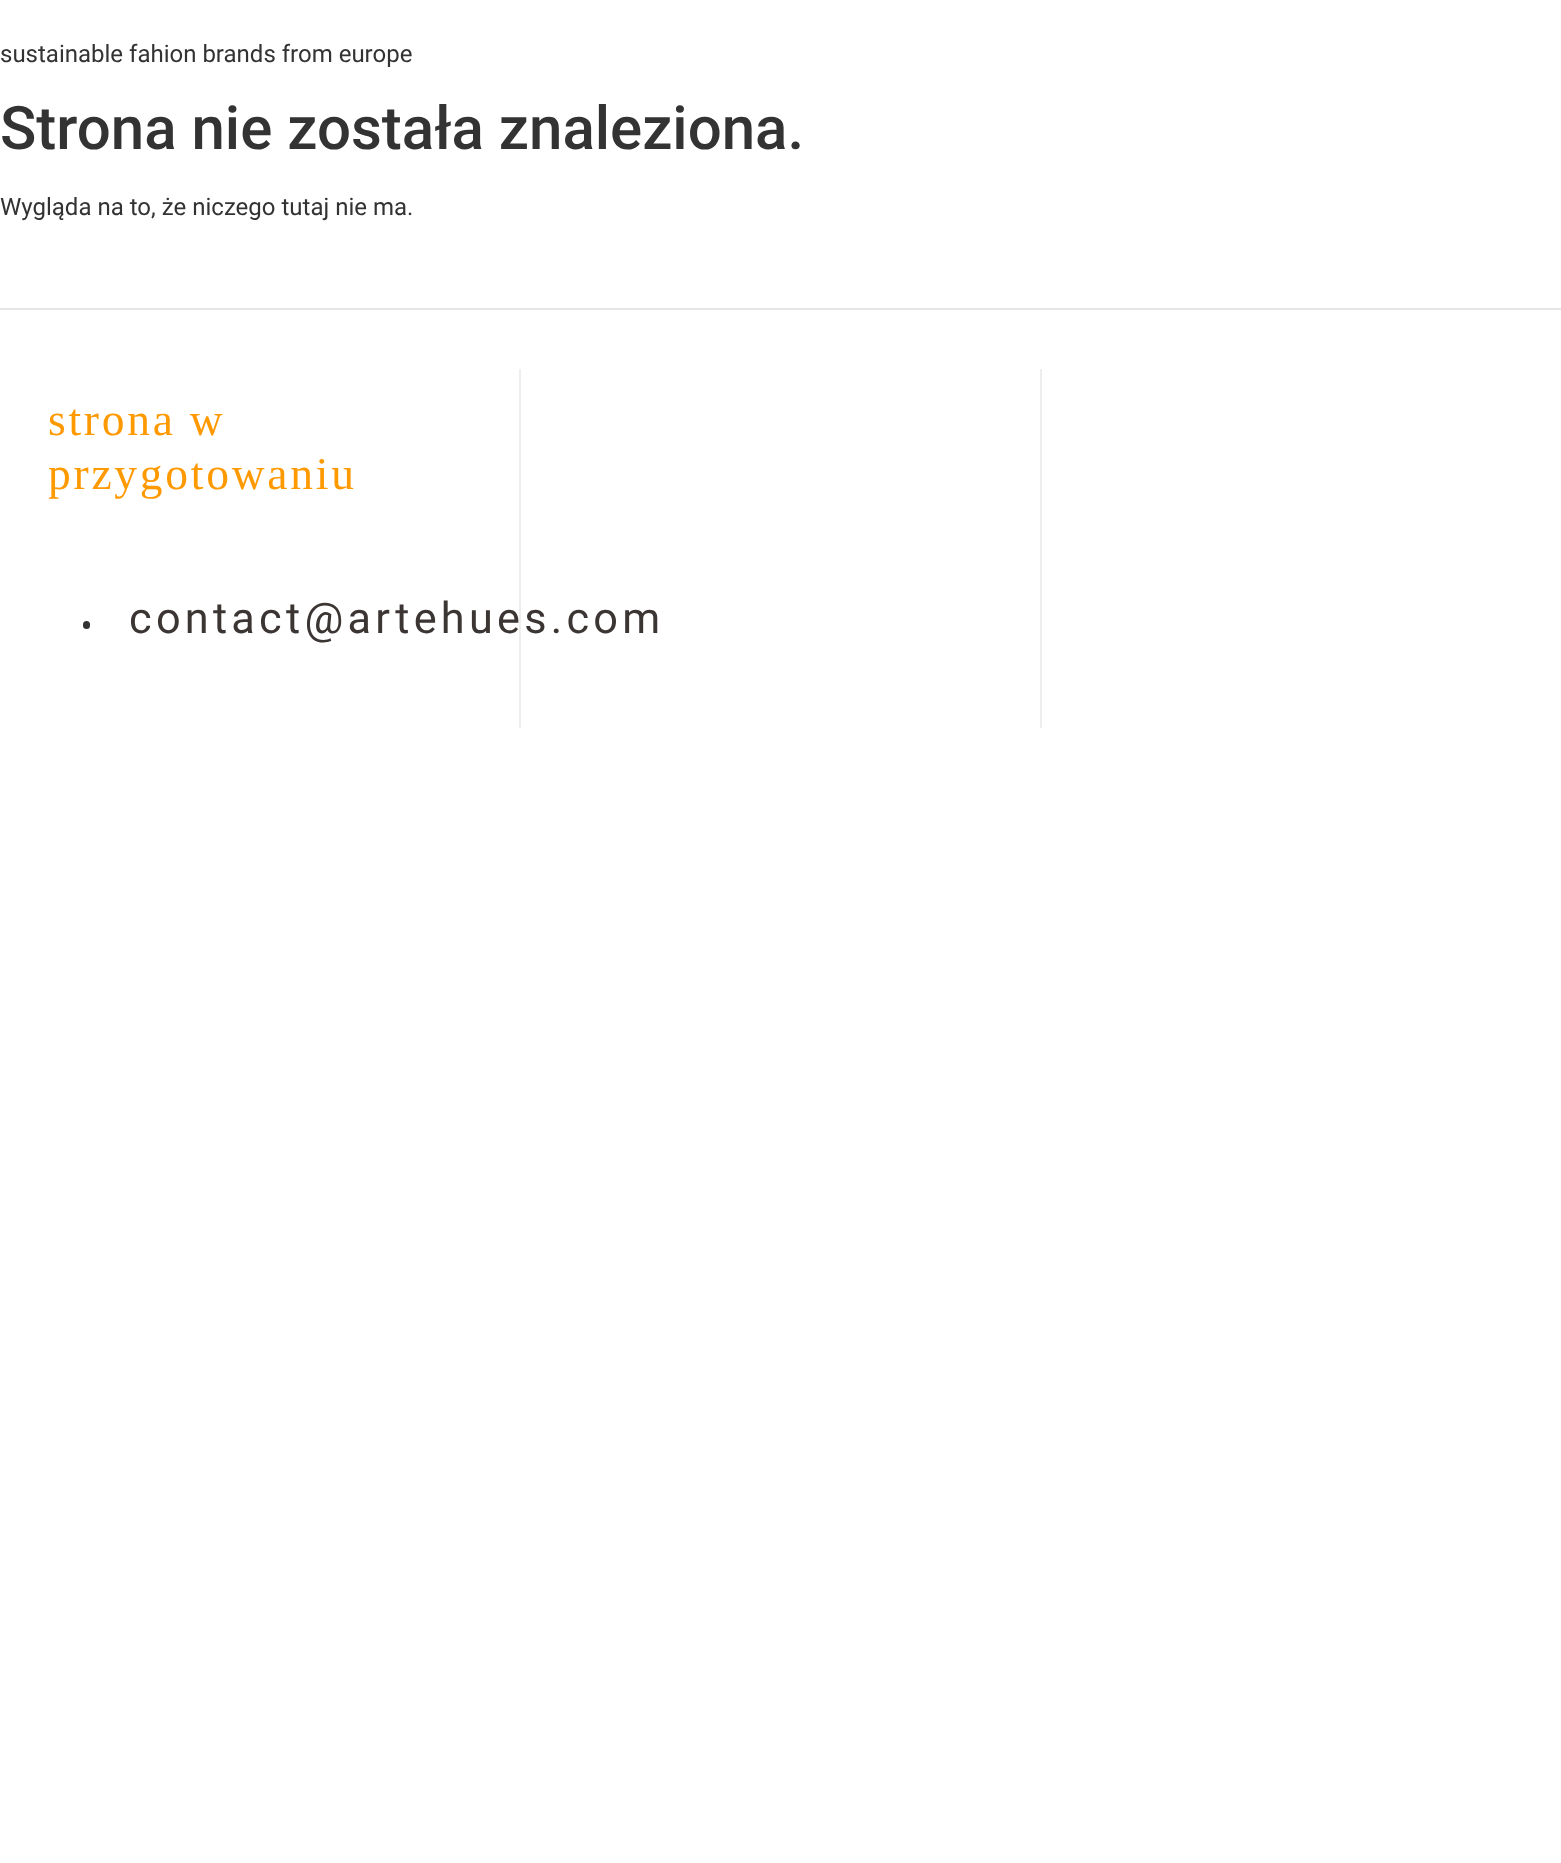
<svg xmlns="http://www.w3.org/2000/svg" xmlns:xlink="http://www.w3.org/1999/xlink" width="1561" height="1863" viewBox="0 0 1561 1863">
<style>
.cls-1{font:24px Roboto;fill:#333333}
.cls-2{font:500 60px Roboto;fill:#333333}
.cls-3{font:45.5px Liberation Serif;letter-spacing:2.75px;fill:#ff9900}
.cls-4{font:43.25px Roboto;letter-spacing:4.25px;fill:#3b3533}
</style>
<rect width="100%" height="100%" fill="#ffffff"/>
<rect fill="#e5e5e5" x="0" y="308" width="1561" height="2"/>
<rect fill="#eeeeee" x="519" y="369" width="2" height="359"/>
<rect fill="#333333" x="83" y="621" width="7" height="8" rx="3.5"/>
<rect fill="#eeeeee" x="1040" y="369" width="2" height="359"/>
<text class="cls-1" x="0" y="62">sustainable fahion brands from europe</text>
<text class="cls-2" x="0" y="149">Strona nie została znaleziona.</text>
<text class="cls-1" x="0" y="215">Wygląda na to, że niczego tutaj nie ma.</text>
<text class="cls-3"><tspan x="48" y="435">strona w</tspan><tspan x="48" y="489">przygotowaniu</tspan></text>
<text class="cls-4" x="129" y="633">contact@artehues.com</text>
</svg>
